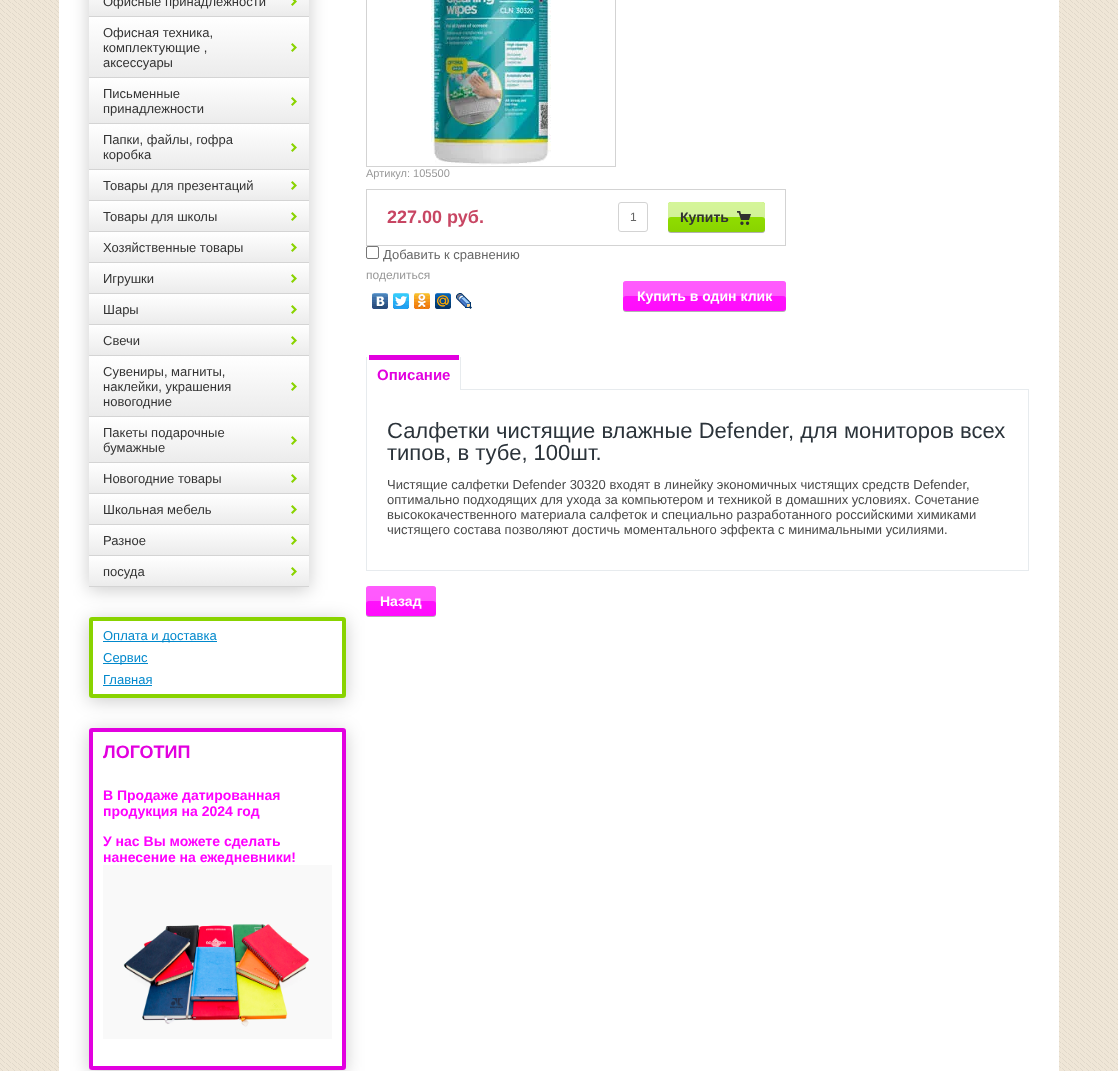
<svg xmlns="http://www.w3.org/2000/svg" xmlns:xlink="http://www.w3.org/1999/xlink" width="1118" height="1071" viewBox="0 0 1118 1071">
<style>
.cls-1{font:13px Liberation Sans;fill:#333333}
.cls-2{font:13px Liberation Sans;fill:#0088cc}
.cls-3{font:bold 18px Liberation Sans;fill:#e200df}
.cls-4{font:bold 14px Liberation Sans;fill:#ff00ff}
.cls-5{font:11px Liberation Sans;fill:#999999}
.cls-6{font:bold 18px Liberation Sans;fill:#c84663}
.cls-7{font:12px Liberation Sans;fill:#666666}
.cls-8{font:bold 14px Liberation Sans;fill:#333333}
.cls-9{font:13px Liberation Sans;fill:#666666}
.cls-10{font:12px Liberation Sans;fill:#999999}
.cls-11{font:bold 14px Liberation Sans;fill:#ffffff}
.cls-12{font:bold 15px Liberation Sans;fill:#e200df}
.cls-13{font:22px Liberation Sans;fill:#2b333a}
.cls-14{font:13px Liberation Sans;fill:#494949}
</style>
<defs>
<linearGradient id="g1" gradientUnits="userSpaceOnUse" x1="199" y1="17" x2="199" y2="-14"><stop offset="0" stop-color="#ebebeb"/><stop offset="1" stop-color="#ffffff"/></linearGradient>
<linearGradient id="g2" gradientUnits="userSpaceOnUse" x1="199" y1="78" x2="199" y2="17"><stop offset="0" stop-color="#ebebeb"/><stop offset="1" stop-color="#ffffff"/></linearGradient>
<linearGradient id="g3" gradientUnits="userSpaceOnUse" x1="199" y1="124" x2="199" y2="78"><stop offset="0" stop-color="#ebebeb"/><stop offset="1" stop-color="#ffffff"/></linearGradient>
<linearGradient id="g4" gradientUnits="userSpaceOnUse" x1="199" y1="170" x2="199" y2="124"><stop offset="0" stop-color="#ebebeb"/><stop offset="1" stop-color="#ffffff"/></linearGradient>
<linearGradient id="g5" gradientUnits="userSpaceOnUse" x1="199" y1="201" x2="199" y2="170"><stop offset="0" stop-color="#ebebeb"/><stop offset="1" stop-color="#ffffff"/></linearGradient>
<linearGradient id="g6" gradientUnits="userSpaceOnUse" x1="199" y1="232" x2="199" y2="201"><stop offset="0" stop-color="#ebebeb"/><stop offset="1" stop-color="#ffffff"/></linearGradient>
<linearGradient id="g7" gradientUnits="userSpaceOnUse" x1="199" y1="263" x2="199" y2="232"><stop offset="0" stop-color="#ebebeb"/><stop offset="1" stop-color="#ffffff"/></linearGradient>
<linearGradient id="g8" gradientUnits="userSpaceOnUse" x1="199" y1="294" x2="199" y2="263"><stop offset="0" stop-color="#ebebeb"/><stop offset="1" stop-color="#ffffff"/></linearGradient>
<linearGradient id="g9" gradientUnits="userSpaceOnUse" x1="199" y1="325" x2="199" y2="294"><stop offset="0" stop-color="#ebebeb"/><stop offset="1" stop-color="#ffffff"/></linearGradient>
<linearGradient id="g10" gradientUnits="userSpaceOnUse" x1="199" y1="356" x2="199" y2="325"><stop offset="0" stop-color="#ebebeb"/><stop offset="1" stop-color="#ffffff"/></linearGradient>
<linearGradient id="g11" gradientUnits="userSpaceOnUse" x1="199" y1="417" x2="199" y2="356"><stop offset="0" stop-color="#ebebeb"/><stop offset="1" stop-color="#ffffff"/></linearGradient>
<linearGradient id="g12" gradientUnits="userSpaceOnUse" x1="199" y1="463" x2="199" y2="417"><stop offset="0" stop-color="#ebebeb"/><stop offset="1" stop-color="#ffffff"/></linearGradient>
<linearGradient id="g13" gradientUnits="userSpaceOnUse" x1="199" y1="494" x2="199" y2="463"><stop offset="0" stop-color="#ebebeb"/><stop offset="1" stop-color="#ffffff"/></linearGradient>
<linearGradient id="g14" gradientUnits="userSpaceOnUse" x1="199" y1="525" x2="199" y2="494"><stop offset="0" stop-color="#ebebeb"/><stop offset="1" stop-color="#ffffff"/></linearGradient>
<linearGradient id="g15" gradientUnits="userSpaceOnUse" x1="199" y1="556" x2="199" y2="525"><stop offset="0" stop-color="#ebebeb"/><stop offset="1" stop-color="#ffffff"/></linearGradient>
<linearGradient id="g16" gradientUnits="userSpaceOnUse" x1="199" y1="587" x2="199" y2="556"><stop offset="0" stop-color="#ebebeb"/><stop offset="1" stop-color="#ffffff"/></linearGradient>
<clipPath id="clip1"><path d="M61 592H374V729H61ZM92 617H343C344.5 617 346 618.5 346 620V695C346 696.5 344.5 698 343 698H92C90.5 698 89 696.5 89 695V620C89 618.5 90.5 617 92 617Z" clip-rule="evenodd"/></clipPath>
<clipPath id="clip2"><path d="M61 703H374V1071H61ZM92 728H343C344.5 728 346 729.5 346 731V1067C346 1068.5 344.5 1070 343 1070H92C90.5 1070 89 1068.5 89 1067V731C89 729.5 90.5 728 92 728Z" clip-rule="evenodd"/></clipPath>
<linearGradient id="g17" gradientUnits="userSpaceOnUse" x1="717" y1="202" x2="717" y2="232"><stop offset="0" stop-color="#96e700"/><stop offset="1" stop-color="#89d300"/></linearGradient>
<linearGradient id="g18" gradientUnits="userSpaceOnUse" x1="705" y1="281" x2="705" y2="311"><stop offset="0" stop-color="#ff16fc"/><stop offset="1" stop-color="#ff0cfc"/></linearGradient>
<linearGradient id="g19" gradientUnits="userSpaceOnUse" x1="401" y1="586" x2="401" y2="616"><stop offset="0" stop-color="#ff16fc"/><stop offset="1" stop-color="#ff0cfc"/></linearGradient>
</defs>
<rect width="100%" height="100%" fill="#efe6d7"/>
<image xlink:href="image0.png" x="0" y="0" width="1118" height="1071"/>
<rect fill="#ffffff" x="59" y="0" width="1000" height="1071"/>
<rect fill="#000000" fill-opacity="0.2" filter="blur(9px)" x="89" y="-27" width="220" height="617"/>
<rect fill="url(#g1)" x="89" y="0" width="220" height="16"/>
<rect fill="#d4d4d4" x="89" y="16" width="220" height="1"/>
<image xlink:href="image1.png" x="291" y="0" width="6" height="6"/>
<rect fill="url(#g2)" x="89" y="17" width="220" height="60"/>
<rect fill="#d4d4d4" x="89" y="77" width="220" height="1"/>
<image xlink:href="image2.png" x="291" y="43" width="6" height="9"/>
<rect fill="url(#g3)" x="89" y="78" width="220" height="45"/>
<rect fill="#d4d4d4" x="89" y="123" width="220" height="1"/>
<image xlink:href="image3.png" x="291" y="97" width="6" height="9"/>
<rect fill="url(#g4)" x="89" y="124" width="220" height="45"/>
<rect fill="#d4d4d4" x="89" y="169" width="220" height="1"/>
<image xlink:href="image3.png" x="291" y="143" width="6" height="9"/>
<rect fill="url(#g5)" x="89" y="170" width="220" height="30"/>
<rect fill="#d4d4d4" x="89" y="200" width="220" height="1"/>
<image xlink:href="image4.png" x="291" y="181" width="6" height="9"/>
<rect fill="url(#g6)" x="89" y="201" width="220" height="30"/>
<rect fill="#d4d4d4" x="89" y="231" width="220" height="1"/>
<image xlink:href="image4.png" x="291" y="212" width="6" height="9"/>
<rect fill="url(#g7)" x="89" y="232" width="220" height="30"/>
<rect fill="#d4d4d4" x="89" y="262" width="220" height="1"/>
<image xlink:href="image4.png" x="291" y="243" width="6" height="9"/>
<rect fill="url(#g8)" x="89" y="263" width="220" height="30"/>
<rect fill="#d4d4d4" x="89" y="293" width="220" height="1"/>
<image xlink:href="image4.png" x="291" y="274" width="6" height="9"/>
<rect fill="url(#g9)" x="89" y="294" width="220" height="30"/>
<rect fill="#d4d4d4" x="89" y="324" width="220" height="1"/>
<image xlink:href="image4.png" x="291" y="305" width="6" height="9"/>
<rect fill="url(#g10)" x="89" y="325" width="220" height="30"/>
<rect fill="#d4d4d4" x="89" y="355" width="220" height="1"/>
<image xlink:href="image4.png" x="291" y="336" width="6" height="9"/>
<rect fill="url(#g11)" x="89" y="356" width="220" height="60"/>
<rect fill="#d4d4d4" x="89" y="416" width="220" height="1"/>
<image xlink:href="image2.png" x="291" y="382" width="6" height="9"/>
<rect fill="url(#g12)" x="89" y="417" width="220" height="45"/>
<rect fill="#d4d4d4" x="89" y="462" width="220" height="1"/>
<image xlink:href="image3.png" x="291" y="436" width="6" height="9"/>
<rect fill="url(#g13)" x="89" y="463" width="220" height="30"/>
<rect fill="#d4d4d4" x="89" y="493" width="220" height="1"/>
<image xlink:href="image4.png" x="291" y="474" width="6" height="9"/>
<rect fill="url(#g14)" x="89" y="494" width="220" height="30"/>
<rect fill="#d4d4d4" x="89" y="524" width="220" height="1"/>
<image xlink:href="image4.png" x="291" y="505" width="6" height="9"/>
<rect fill="url(#g15)" x="89" y="525" width="220" height="30"/>
<rect fill="#d4d4d4" x="89" y="555" width="220" height="1"/>
<image xlink:href="image4.png" x="291" y="536" width="6" height="9"/>
<rect fill="url(#g16)" x="89" y="556" width="220" height="30"/>
<rect fill="#d4d4d4" x="89" y="586" width="220" height="1"/>
<image xlink:href="image4.png" x="291" y="567" width="6" height="9"/>
<g clip-path="url(#clip1)">
<rect fill="#000000" fill-opacity="0.2" filter="blur(9px)" x="89" y="620" width="257" height="81" rx="3"/>
</g>
<rect fill="none" stroke="#89d300" stroke-width="4" x="91" y="619" width="253" height="77" rx="1"/>
<rect fill="#0088cc" x="103" y="641" width="114" height="1"/>
<rect fill="#0088cc" x="103" y="663" width="45" height="1"/>
<rect fill="#0088cc" x="103" y="685" width="49" height="1"/>
<g clip-path="url(#clip2)">
<rect fill="#000000" fill-opacity="0.2" filter="blur(9px)" x="89" y="731" width="257" height="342" rx="3"/>
</g>
<rect fill="none" stroke="#e200df" stroke-width="4" x="91" y="730" width="253" height="338" rx="1"/>
<image xlink:href="image5.png" x="103" y="865" width="229" height="174"/>
<rect fill="none" stroke="#d3d3d3" x="366.5" y="-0.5" width="249" height="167"/>
<image xlink:href="image6.png" x="431" y="0" width="120" height="165"/>
<rect fill="none" stroke="#d3d3d3" x="366.5" y="189.5" width="419" height="56"/>
<rect fill="none" stroke="#d3d3d3" x="618.5" y="202.5" width="29" height="29" rx="2.5"/>
<rect fill="#000000" fill-opacity="0.3" filter="blur(0.5px)" x="668" y="203" width="97" height="30" rx="3"/>
<rect fill="url(#g17)" x="668" y="202" width="97" height="30" rx="3"/>
<path fill="#ffffff" fill-opacity="0.6" d="M671 217H762C764 217 765 218 765 220C765 199 769 202 747 202H686C664 202 668 199 668 220C668 218 669 217 671 217Z"/>
<image xlink:href="image7.png" x="737" y="211" width="14" height="14"/>
<rect fill="none" stroke="#767676" x="366.5" y="246.5" width="12" height="12" rx="1.5"/>
<image xlink:href="image8.png" x="372" y="293" width="16" height="16"/>
<image xlink:href="image9.png" x="393" y="293" width="16" height="16"/>
<image xlink:href="image10.png" x="414" y="293" width="16" height="16"/>
<image xlink:href="image11.png" x="435" y="293" width="16" height="16"/>
<image xlink:href="image12.png" x="456" y="293" width="16" height="16"/>
<rect fill="#000000" fill-opacity="0.3" filter="blur(0.5px)" x="623" y="282" width="163" height="30" rx="3"/>
<rect fill="url(#g18)" x="623" y="281" width="163" height="30" rx="3"/>
<path fill="#ffffff" fill-opacity="0.3" d="M626 296H783C785 296 786 297 786 299V284C786 282 785 281 783 281H626C624 281 623 282 623 284V299C623 297 624 296 626 296Z"/>
<rect fill="none" stroke="#e7ebee" x="366.5" y="389.5" width="662" height="181"/>
<path fill="#ffffff" d="M369 355H458C459 355 460 356 460 358V390H367V358C367 356 368 355 369 355Z"/>
<rect fill="#e7ebee" x="460" y="357" width="1" height="33"/>
<rect fill="#e7ebee" x="366" y="357" width="1" height="33"/>
<rect fill="#e200df" x="369" y="355" width="90" height="5"/>
<rect fill="#000000" fill-opacity="0.3" filter="blur(0.5px)" x="366" y="587" width="70" height="30" rx="3"/>
<rect fill="url(#g19)" x="366" y="586" width="70" height="30" rx="3"/>
<path fill="#ffffff" fill-opacity="0.3" d="M369 601H433C435 601 436 602 436 604V589C436 587 435 586 433 586H369C367 586 366 587 366 589V604C366 602 367 601 369 601Z"/>
<text class="cls-1" x="103" y="6">Офисные принадлежности</text>
<text class="cls-1"><tspan x="103" y="37">Офисная техника,</tspan><tspan x="103" y="52">комплектующие ,</tspan><tspan x="103" y="67">аксессуары</tspan></text>
<text class="cls-1"><tspan x="103" y="98">Письменные</tspan><tspan x="103" y="113">принадлежности</tspan></text>
<text class="cls-1"><tspan x="103" y="144">Папки, файлы, гофра</tspan><tspan x="103" y="159">коробка</tspan></text>
<text class="cls-1" x="103" y="190">Товары для презентаций</text>
<text class="cls-1" x="103" y="221">Товары для школы</text>
<text class="cls-1" x="103" y="252">Хозяйственные товары</text>
<text class="cls-1" x="103" y="283">Игрушки</text>
<text class="cls-1" x="103" y="314">Шары</text>
<text class="cls-1" x="103" y="345">Свечи</text>
<text class="cls-1"><tspan x="103" y="376">Сувениры, магниты,</tspan><tspan x="103" y="391">наклейки, украшения</tspan><tspan x="103" y="406">новогодние</tspan></text>
<text class="cls-1"><tspan x="103" y="437">Пакеты подарочные</tspan><tspan x="103" y="452">бумажные</tspan></text>
<text class="cls-1" x="103" y="483">Новогодние товары</text>
<text class="cls-1" x="103" y="514">Школьная мебель</text>
<text class="cls-1" x="103" y="545">Разное</text>
<text class="cls-1" x="103" y="576">посуда</text>
<text class="cls-2"><tspan x="103" y="640">Оплата и доставка</tspan><tspan x="103" y="662">Сервис</tspan><tspan x="103" y="684">Главная</tspan></text>
<text class="cls-3" x="103" y="758">ЛОГОТИП</text>
<text class="cls-4"><tspan x="103" y="800">В Продаже датированная</tspan><tspan x="103" y="816">продукция на 2024 год</tspan></text>
<text class="cls-4"><tspan x="103" y="846">У нас Вы можете сделать</tspan><tspan x="103" y="862">нанесение на ежедневники!</tspan></text>
<text class="cls-5" x="366" y="177">Артикул: 105500</text>
<text class="cls-6" x="387" y="223">227.00 руб.</text>
<text class="cls-7" x="630" y="221">1</text>
<text class="cls-8" x="680" y="222">Купить</text>
<text class="cls-9" x="383" y="259">Добавить к сравнению</text>
<text class="cls-10" x="366" y="279">поделиться</text>
<text class="cls-11" x="637" y="301">Купить в один клик</text>
<text class="cls-12" x="377" y="380">Описание</text>
<text class="cls-13"><tspan x="387" y="438">Салфетки чистящие влажные Defender, для мониторов всех</tspan><tspan x="387" y="460">типов, в тубе, 100шт.</tspan></text>
<text class="cls-14"><tspan x="387" y="489">Чистящие салфетки Defender 30320 входят в линейку экономичных чистящих средств Defender,</tspan><tspan x="387" y="504">оптимально подходящих для ухода за компьютером и техникой в домашних условиях. Сочетание</tspan><tspan x="387" y="519">высококачественного материала салфеток и специально разработанного российскими химиками</tspan><tspan x="387" y="534">чистящего состава позволяют достичь моментального эффекта с минимальными усилиями.</tspan></text>
<text class="cls-11" x="380" y="606">Назад</text>
</svg>
